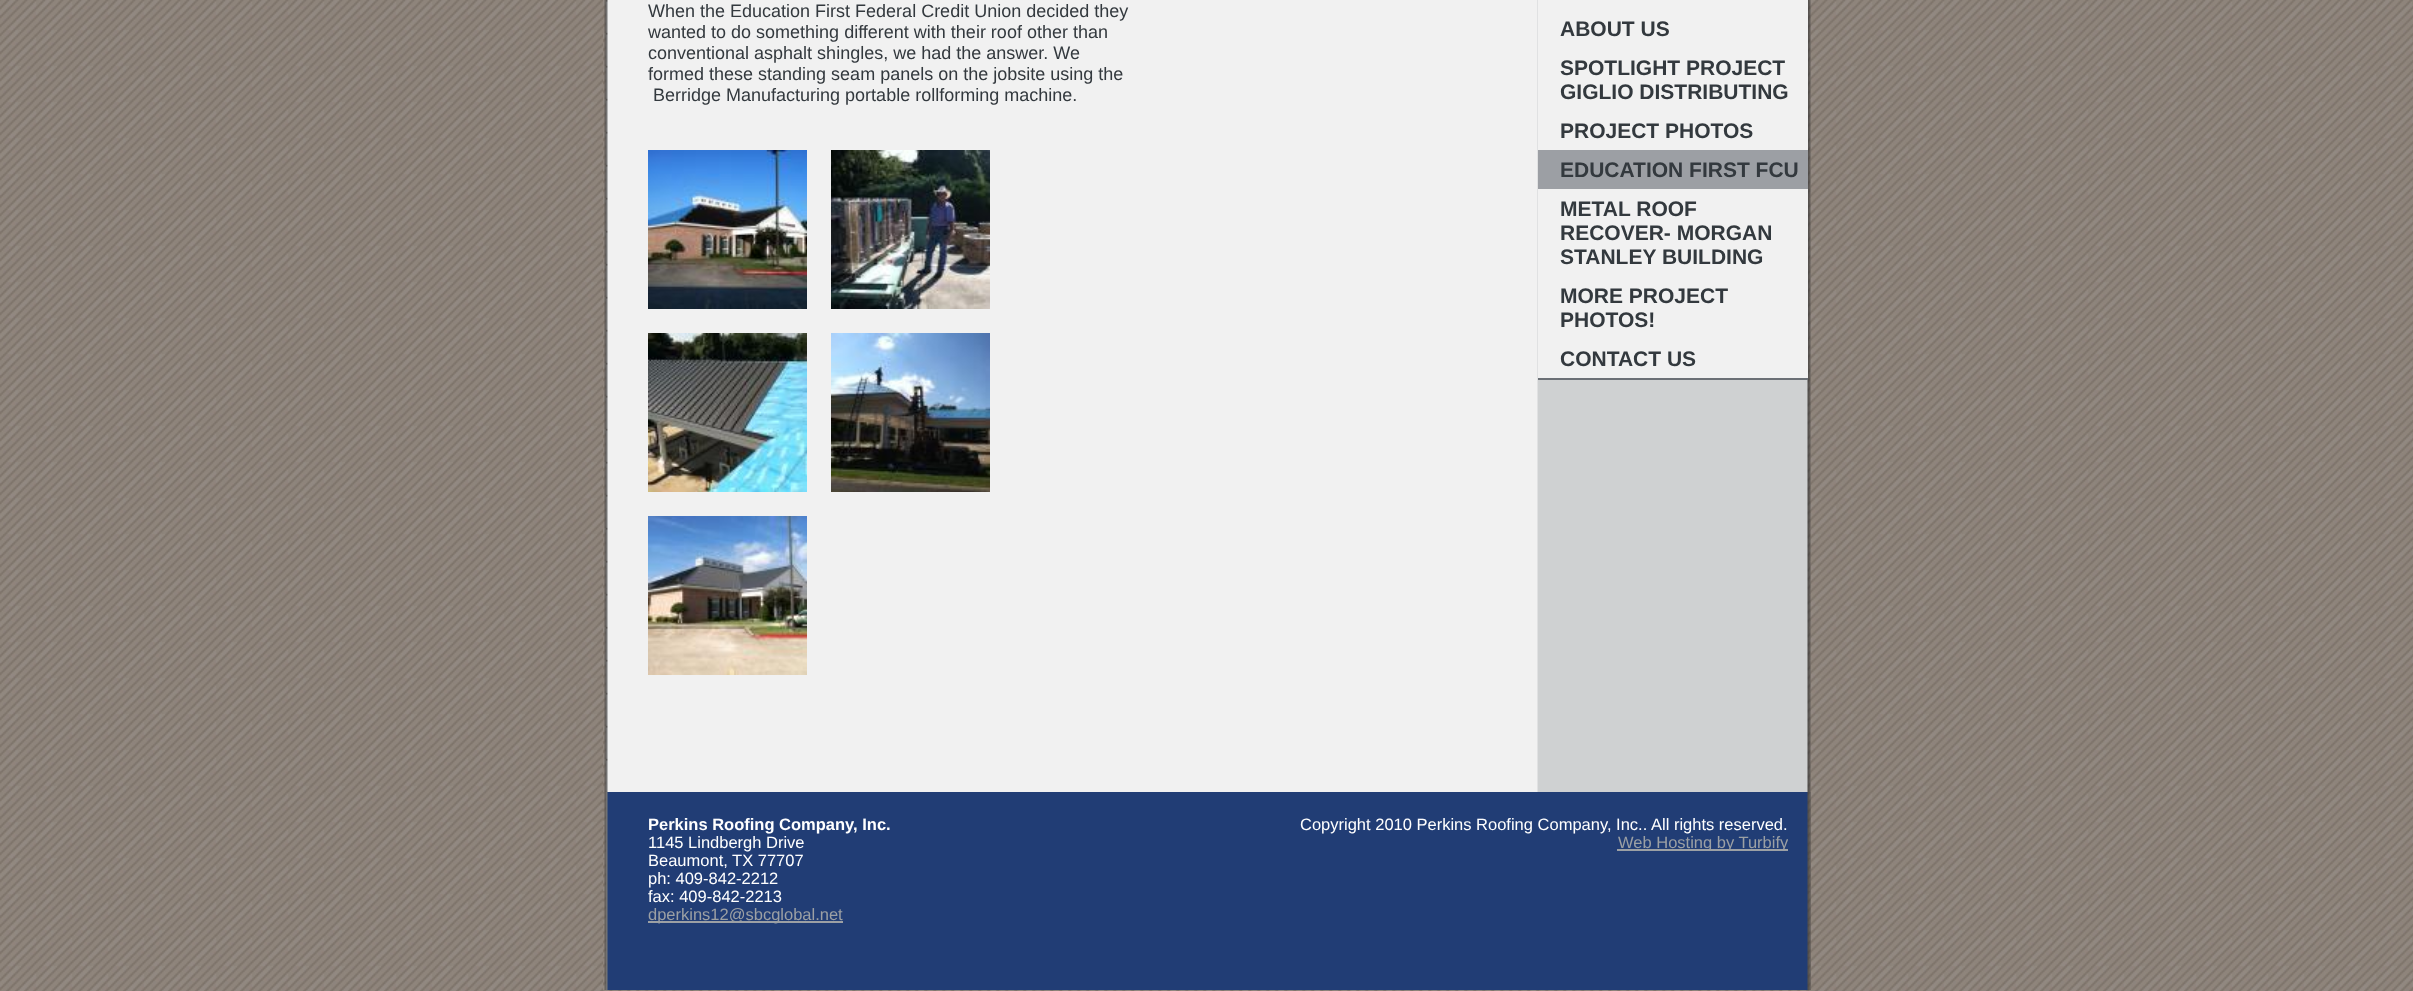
<svg xmlns="http://www.w3.org/2000/svg" xmlns:xlink="http://www.w3.org/1999/xlink" width="2413" height="991" viewBox="0 0 2413 991">
<style>
.cls-1{font:18px Liberation Sans;fill:#33393e}
.cls-2{font:bold 21px Liberation Sans;fill:#33393e}
.cls-3{font:bold 16.5px Liberation Sans;fill:#ffffff}
.cls-4{font:16.5px Liberation Sans;fill:#ffffff}
.cls-5{font:16.5px Liberation Sans;fill:#9ca0a4}
</style>
<defs>
<clipPath id="clip1"><rect x="1113" y="815" width="675" height="36"/></clipPath>
</defs>
<rect width="100%" height="100%" fill="#ffffff"/>
<image xlink:href="image0.png" x="0" y="0" width="2413" height="991"/>
<image xlink:href="image1.png" x="603" y="0" width="1208" height="990"/>
<image xlink:href="image2.png" x="648" y="150" width="159" height="159"/>
<image xlink:href="image3.png" x="831" y="150" width="159" height="159"/>
<image xlink:href="image4.png" x="648" y="333" width="159" height="159"/>
<image xlink:href="image5.png" x="831" y="333" width="159" height="159"/>
<image xlink:href="image6.png" x="648" y="516" width="159" height="159"/>
<rect fill="#f1f1f1" x="1538" y="0" width="270" height="378"/>
<rect fill="#6b7076" x="1538" y="378" width="270" height="2"/>
<rect fill="#9c9fa4" x="1538" y="150" width="270" height="39"/>
<image xlink:href="image7.png" x="603" y="792" width="1208" height="198"/>
<rect fill="#9ca0a4" x="648" y="921" width="195" height="2"/>
<rect fill="#9ca0a4" x="1617" y="849" width="171" height="2"/>
<text class="cls-1"><tspan x="648" y="17">When the Education First Federal Credit Union decided they</tspan><tspan x="648" y="38">wanted to do something different with their roof other than</tspan><tspan x="648" y="59">conventional asphalt shingles, we had the answer. We</tspan><tspan x="648" y="80">formed these standing seam panels on the jobsite using the</tspan></text>
<text class="cls-1" x="653" y="101">Berridge Manufacturing portable rollforming machine.</text>
<text class="cls-2"><tspan x="1560" y="36">ABOUT US</tspan><tspan x="1560" y="75">SPOTLIGHT PROJECT</tspan><tspan x="1560" y="99">GIGLIO DISTRIBUTING</tspan><tspan x="1560" y="138">PROJECT PHOTOS</tspan><tspan x="1560" y="177">EDUCATION FIRST FCU</tspan><tspan x="1560" y="216">METAL ROOF</tspan><tspan x="1560" y="240">RECOVER- MORGAN</tspan><tspan x="1560" y="264">STANLEY BUILDING</tspan><tspan x="1560" y="303">MORE PROJECT</tspan><tspan x="1560" y="327">PHOTOS!</tspan><tspan x="1560" y="366">CONTACT US</tspan></text>
<text class="cls-3" x="648" y="830">Perkins Roofing Company, Inc.</text>
<text class="cls-4"><tspan x="648" y="848">1145 Lindbergh Drive</tspan><tspan x="648" y="866">Beaumont, TX 77707</tspan><tspan x="648" y="884">ph: 409-842-2212</tspan><tspan x="648" y="902">fax: 409-842-2213</tspan></text>
<text class="cls-5" x="648" y="920">dperkins12@sbcglobal.net</text>
<text class="cls-4" x="1300" y="830">Copyright 2010 Perkins Roofing Company, Inc.. All rights reserved.</text>
<g clip-path="url(#clip1)">
<text class="cls-5" x="1618" y="848">Web Hosting by Turbify</text>
</g>
</svg>
